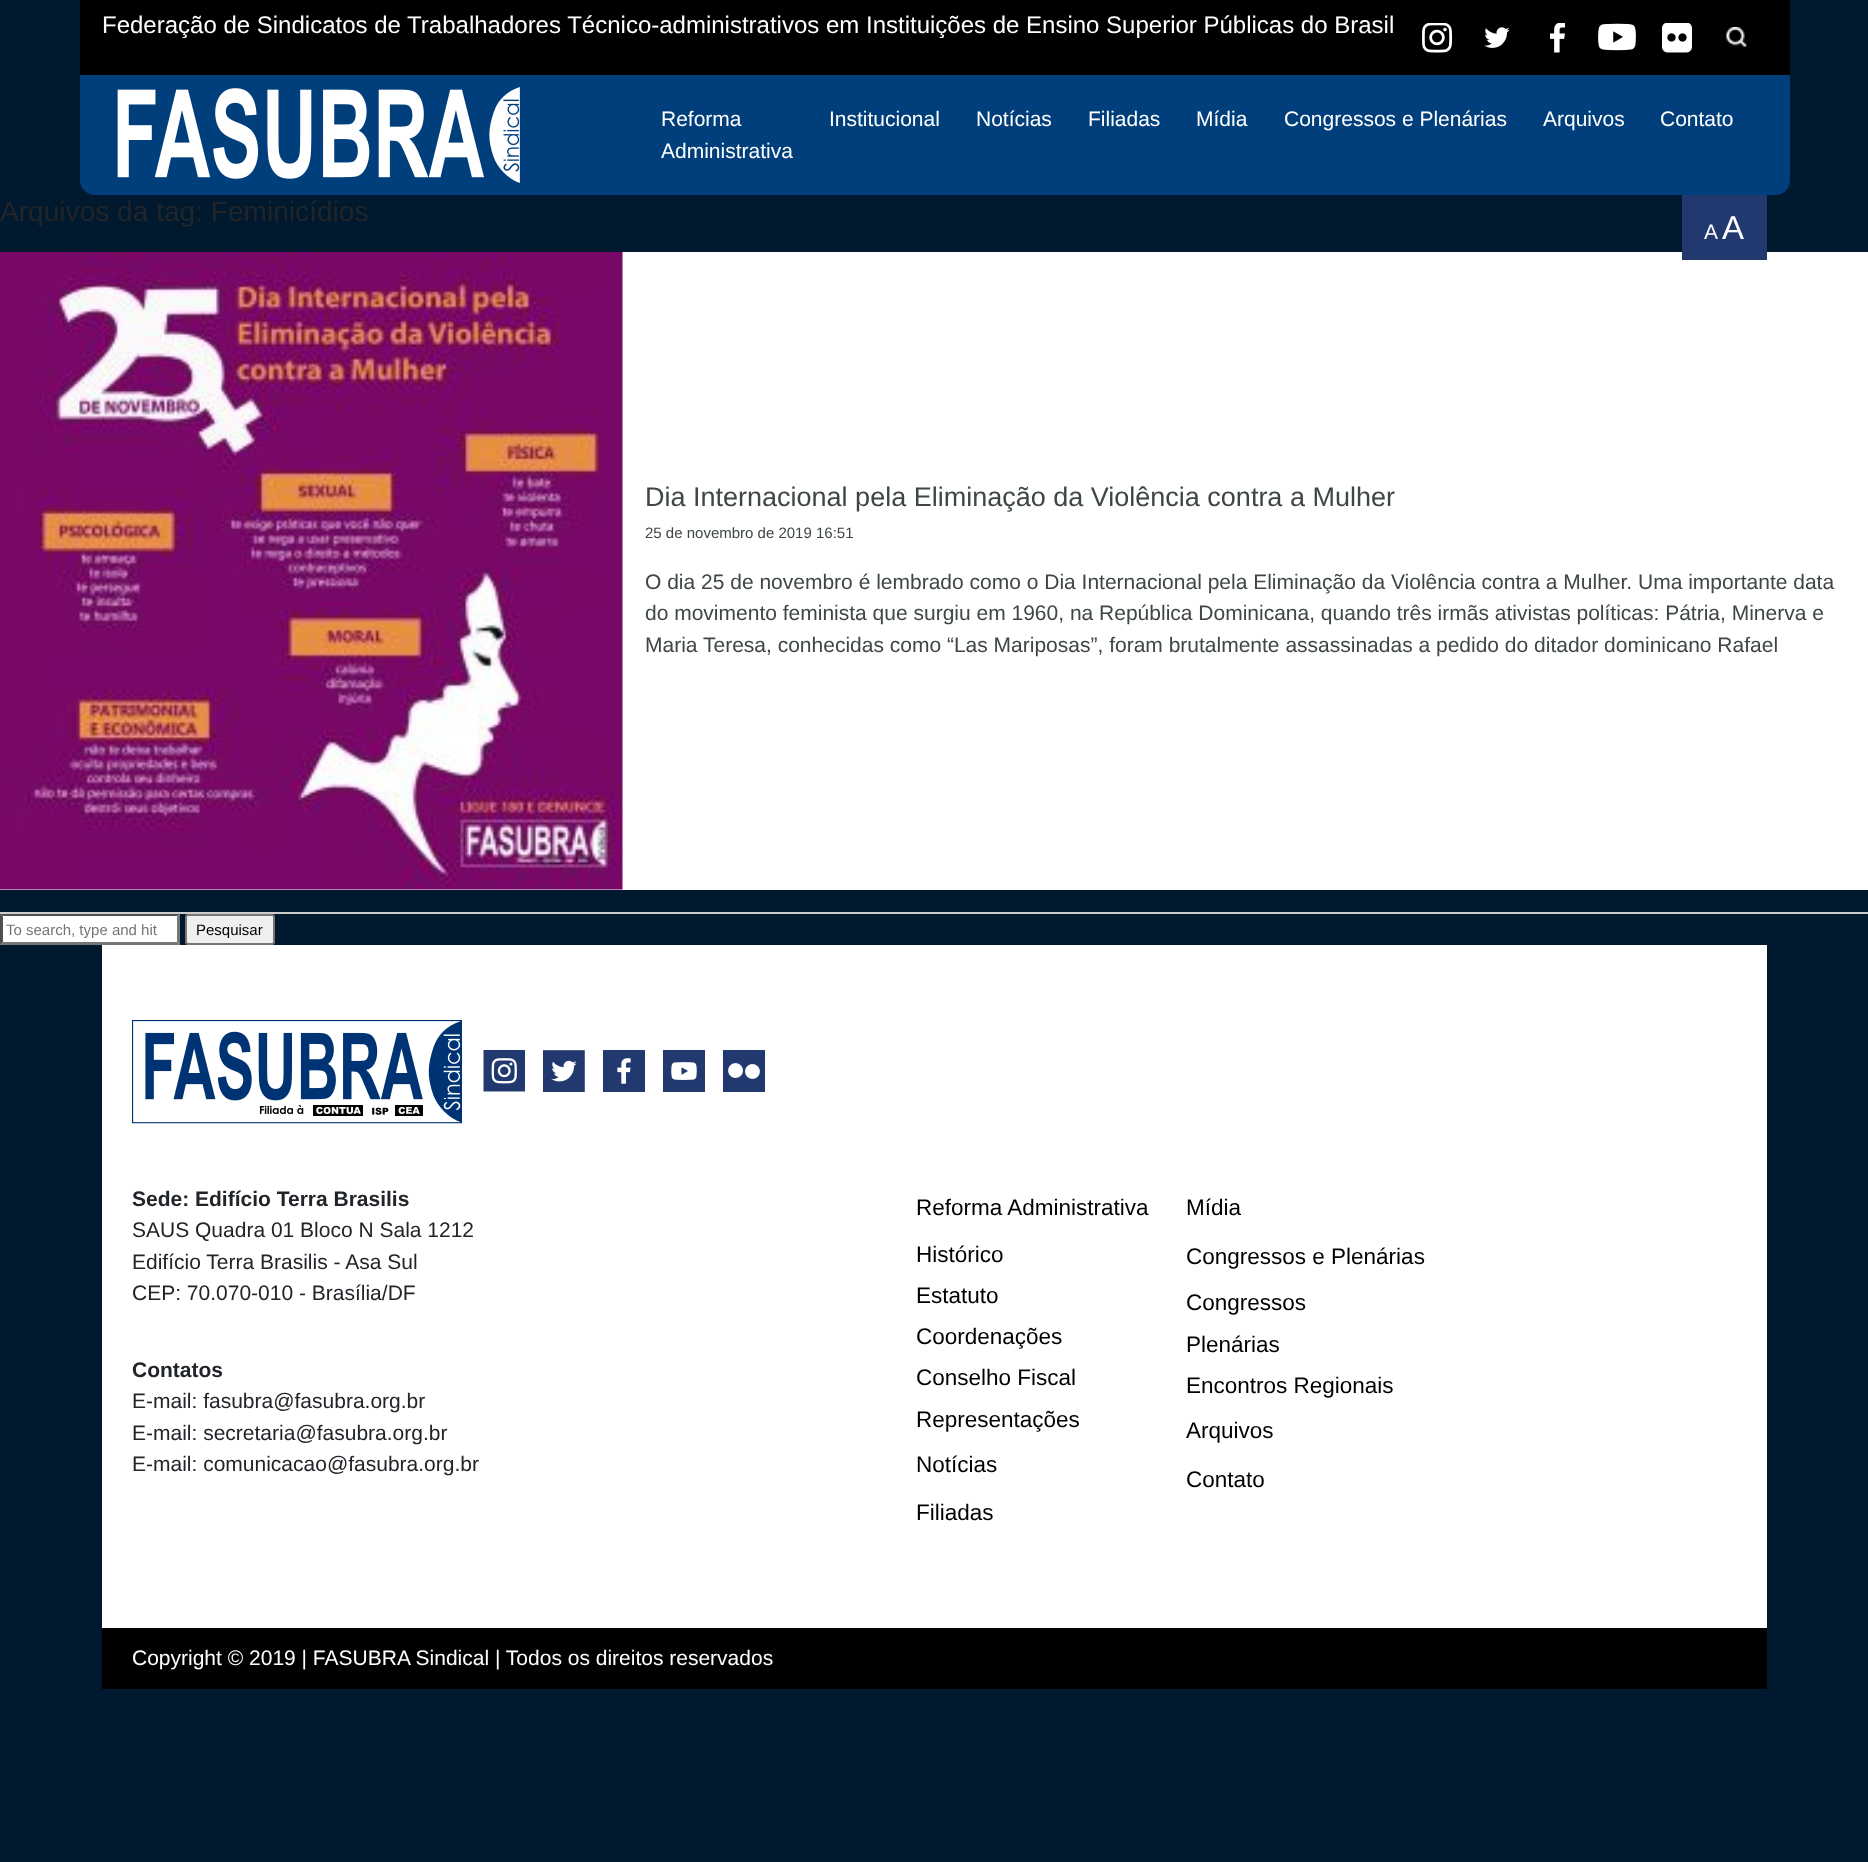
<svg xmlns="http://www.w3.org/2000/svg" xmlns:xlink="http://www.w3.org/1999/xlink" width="1868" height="1862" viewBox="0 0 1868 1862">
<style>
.cls-1{font:24px Liberation Sans;fill:#ffffff}
.cls-2{font:21px Liberation Sans;fill:#ffffff}
.cls-3{font:33px Liberation Sans;fill:#ffffff}
.cls-4{font:28.1px Liberation Sans;fill:#212529}
.cls-5{font:27px Liberation Sans;fill:#3e4646}
.cls-6{font:15px Liberation Sans;fill:#3e4646}
.cls-7{font:21px Liberation Sans;fill:#3e4646}
.cls-8{font:15px Liberation Sans;fill:#757575}
.cls-9{font:15px Liberation Sans;fill:#000000}
.cls-10{font:bold 21px Liberation Sans;fill:#212529}
.cls-11{font:21px Liberation Sans;fill:#212529}
.cls-12{font:22.5px Liberation Sans;fill:#000000}
</style>
<rect width="100%" height="100%" fill="#01192f"/>
<rect fill="#000000" x="80" y="0" width="1710" height="75"/>
<image xlink:href="image0.png" x="1422" y="23" width="30" height="30"/>
<image xlink:href="image1.png" x="1484" y="27" width="26" height="21"/>
<image xlink:href="image2.png" x="1550" y="23" width="15" height="30"/>
<image xlink:href="image3.png" x="1598" y="23" width="38" height="28"/>
<image xlink:href="image4.png" x="1662" y="23" width="30" height="30"/>
<image xlink:href="image5.png" x="1726" y="27" width="21" height="20"/>
<path fill="#003f7b" d="M80 75H1790V180C1790 188.5 1783.5 195 1775 195H95C86.5 195 80 188.5 80 180Z"/>
<image xlink:href="image6.png" x="117" y="87" width="403" height="96"/>
<rect fill="#ffffff" x="0" y="252" width="1868" height="638"/>
<rect fill="#223970" x="1682" y="195" width="85" height="65"/>
<rect fill="#cccccc" x="0" y="912" width="1868" height="2"/>
<image xlink:href="image7.png" x="0" y="252" width="623" height="638"/>
<rect fill="#ffffff" x="0" y="914" width="180" height="31"/>
<path fill="#4f4f4f" d="M0 914H180L177 916H3Z"/>
<path fill="#767676" d="M180 913.5V945L177 942V916.5Z"/>
<path fill="#767676" d="M180 945H0L3 942H177Z"/>
<path fill="#4f4f4f" d="M0 945V913.5L3 916.5V942Z"/>
<rect fill="#efefef" stroke="#767676" stroke-width="2" x="186" y="915" width="88" height="29" rx="2"/>
<rect fill="#ffffff" x="102" y="945" width="1665" height="683"/>
<image xlink:href="image8.png" x="132" y="1020" width="330" height="104"/>
<image xlink:href="image9.png" x="483" y="1050" width="42" height="42"/>
<image xlink:href="image10.png" x="543" y="1050" width="42" height="42"/>
<image xlink:href="image11.png" x="603" y="1050" width="42" height="42"/>
<image xlink:href="image12.png" x="663" y="1050" width="42" height="42"/>
<image xlink:href="image13.png" x="723" y="1050" width="42" height="42"/>
<rect fill="#000000" x="102" y="1628" width="1665" height="61"/>
<text class="cls-1" x="102" y="33">Federação de Sindicatos de Trabalhadores Técnico-administrativos em Instituições de Ensino Superior Públicas do Brasil</text>
<text class="cls-2"><tspan x="661" y="126">Reforma</tspan><tspan x="661" y="158">Administrativa</tspan></text>
<text class="cls-2" x="829" y="126">Institucional</text>
<text class="cls-2" x="976" y="126">Notícias</text>
<text class="cls-2" x="1088" y="126">Filiadas</text>
<text class="cls-2" x="1196" y="126">Mídia</text>
<text class="cls-2" x="1284" y="126">Congressos e Plenárias</text>
<text class="cls-2" x="1543" y="126">Arquivos</text>
<text class="cls-2" x="1660" y="126">Contato</text>
<text class="cls-2" x="1704" y="239">A</text>
<text class="cls-3" x="1722" y="239">A</text>
<text class="cls-4" x="0" y="221">Arquivos da tag: Feminicídios</text>
<text class="cls-5" x="645" y="506">Dia Internacional pela Eliminação da Violência contra a Mulher</text>
<text class="cls-6" x="645" y="538">25 de novembro de 2019 16:51</text>
<text class="cls-7"><tspan x="645" y="589">O dia 25 de novembro é lembrado como o Dia Internacional pela Eliminação da Violência contra a Mulher. Uma importante data</tspan><tspan x="645" y="620">do movimento feminista que surgiu em 1960, na República Dominicana, quando três irmãs ativistas políticas: Pátria, Minerva e</tspan><tspan x="645" y="652">Maria Teresa, conhecidas como “Las Mariposas”, foram brutalmente assassinadas a pedido do ditador dominicano Rafael</tspan></text>
<text class="cls-8" x="6" y="935">To search, type and hit</text>
<text class="cls-9" x="196" y="935">Pesquisar</text>
<text class="cls-10" x="132" y="1206">Sede: Edifício Terra Brasilis</text>
<text class="cls-11"><tspan x="132" y="1237">SAUS Quadra 01 Bloco N Sala 1212</tspan><tspan x="132" y="1269">Edifício Terra Brasilis - Asa Sul</tspan><tspan x="132" y="1300">CEP: 70.070-010 - Brasília/DF</tspan></text>
<text class="cls-10" x="132" y="1377">Contatos</text>
<text class="cls-11"><tspan x="132" y="1408">E-mail: fasubra@fasubra.org.br</tspan><tspan x="132" y="1440">E-mail: secretaria@fasubra.org.br</tspan><tspan x="132" y="1471">E-mail: comunicacao@fasubra.org.br</tspan></text>
<text class="cls-12" x="916" y="1215">Reforma Administrativa</text>
<text class="cls-12" x="1186" y="1215">Mídia</text>
<text class="cls-12"><tspan x="916" y="1262">Histórico</tspan><tspan x="916" y="1303">Estatuto</tspan><tspan x="916" y="1344">Coordenações</tspan><tspan x="916" y="1385">Conselho Fiscal</tspan><tspan x="916" y="1427">Representações</tspan></text>
<text class="cls-12" x="1186" y="1264">Congressos e Plenárias</text>
<text class="cls-12"><tspan x="1186" y="1310">Congressos</tspan><tspan x="1186" y="1352">Plenárias</tspan><tspan x="1186" y="1393">Encontros Regionais</tspan></text>
<text class="cls-12" x="1186" y="1438">Arquivos</text>
<text class="cls-12" x="916" y="1472">Notícias</text>
<text class="cls-12" x="1186" y="1487">Contato</text>
<text class="cls-12" x="916" y="1520">Filiadas</text>
<text class="cls-2" x="132" y="1665">Copyright © 2019 | FASUBRA Sindical | Todos os direitos reservados</text>
</svg>
